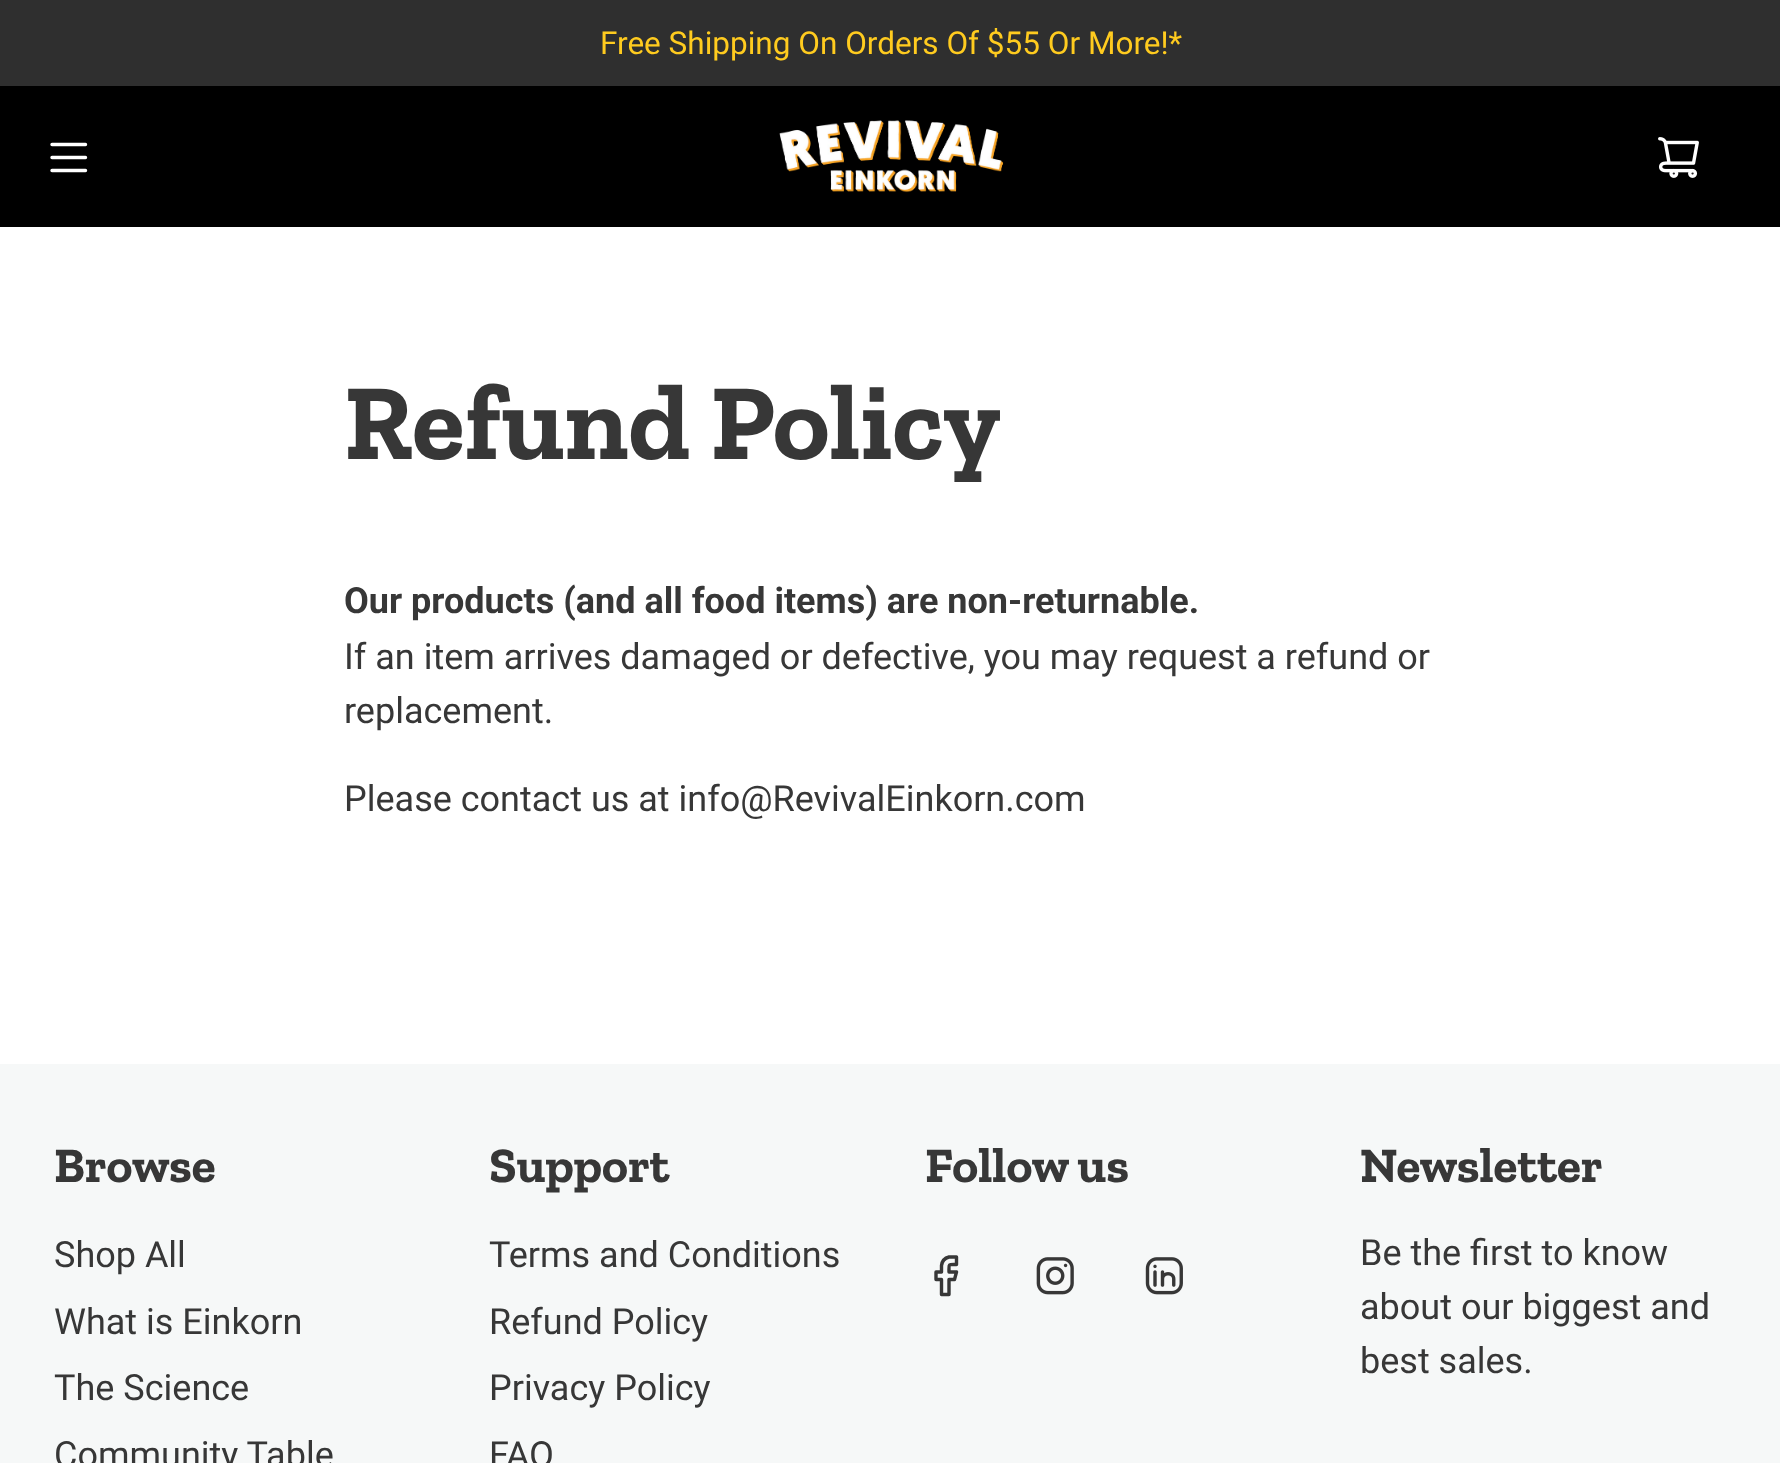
<svg xmlns="http://www.w3.org/2000/svg" xmlns:xlink="http://www.w3.org/1999/xlink" width="1780" height="1463" viewBox="0 0 1780 1463">
<style>
.cls-1{font:31.5px Roboto;fill:#ffcb1f}
.cls-2{font:bold 108px Zilla Slab;fill:#373737}
.cls-3{font:bold 36px Roboto;fill:#373737}
.cls-4{font:36px Roboto;fill:#373737}
.cls-5{font:bold 49.5px Zilla Slab;fill:#373737}
</style>
<rect width="100%" height="100%" fill="#ffffff"/>
<rect fill="#2f2f2f" x="0" y="0" width="1780" height="86"/>
<rect fill="#000000" x="0" y="86" width="1780" height="141"/>
<path fill="none" stroke="#ffffff" stroke-width="3.4" stroke-linecap="round" stroke-linejoin="round" d="M52 144.5H85.5M52 157.5H85.5M52 170.5H85.5"/>
<image xlink:href="image0.png" x="779" y="120" width="225" height="73"/>
<image xlink:href="image1.png" x="1658" y="137" width="41" height="41"/>
<rect fill="#f6f8f8" x="0" y="1064" width="1780" height="399"/>
<path fill="none" stroke="#373737" stroke-width="3.4" stroke-linecap="round" stroke-linejoin="round" d="M956.5 1257H949C945 1258 942 1261.5 941.5 1265.5V1272H936V1279.5H941.5V1294.5H949V1279.5H954.5L956.5 1272H949C949 1263.5 948 1264.5 956.5 1264.5Z"/>
<image xlink:href="image2.png" x="1036" y="1257" width="38" height="38"/>
<image xlink:href="image3.png" x="1145" y="1257" width="38" height="38"/>
<text class="cls-1" x="600" y="54">Free Shipping On Orders Of $55 Or More!*</text>
<text class="cls-2" x="344" y="459">Refund Policy</text>
<text class="cls-3" x="344" y="613">Our products (and all food items) are non-returnable.</text>
<text class="cls-4"><tspan x="344" y="669">If an item arrives damaged or defective, you may request a refund or</tspan><tspan x="344" y="723">replacement.</tspan></text>
<text class="cls-4" x="344" y="811">Please contact us at info@RevivalEinkorn.com</text>
<text class="cls-5" x="54" y="1182">Browse</text>
<text class="cls-4"><tspan x="54" y="1267">Shop All</tspan><tspan x="54" y="1334">What is Einkorn</tspan><tspan x="54" y="1400">The Science</tspan><tspan x="54" y="1467">Community Table</tspan></text>
<text class="cls-5" x="489" y="1182">Support</text>
<text class="cls-4"><tspan x="489" y="1267">Terms and Conditions</tspan><tspan x="489" y="1334">Refund Policy</tspan><tspan x="489" y="1400">Privacy Policy</tspan><tspan x="489" y="1467">FAQ</tspan></text>
<text class="cls-5" x="925" y="1182">Follow us</text>
<text class="cls-5" x="1360" y="1182">Newsletter</text>
<text class="cls-4"><tspan x="1360" y="1265">Be the first to know</tspan><tspan x="1360" y="1319">about our biggest and</tspan><tspan x="1360" y="1373">best sales.</tspan></text>
</svg>
